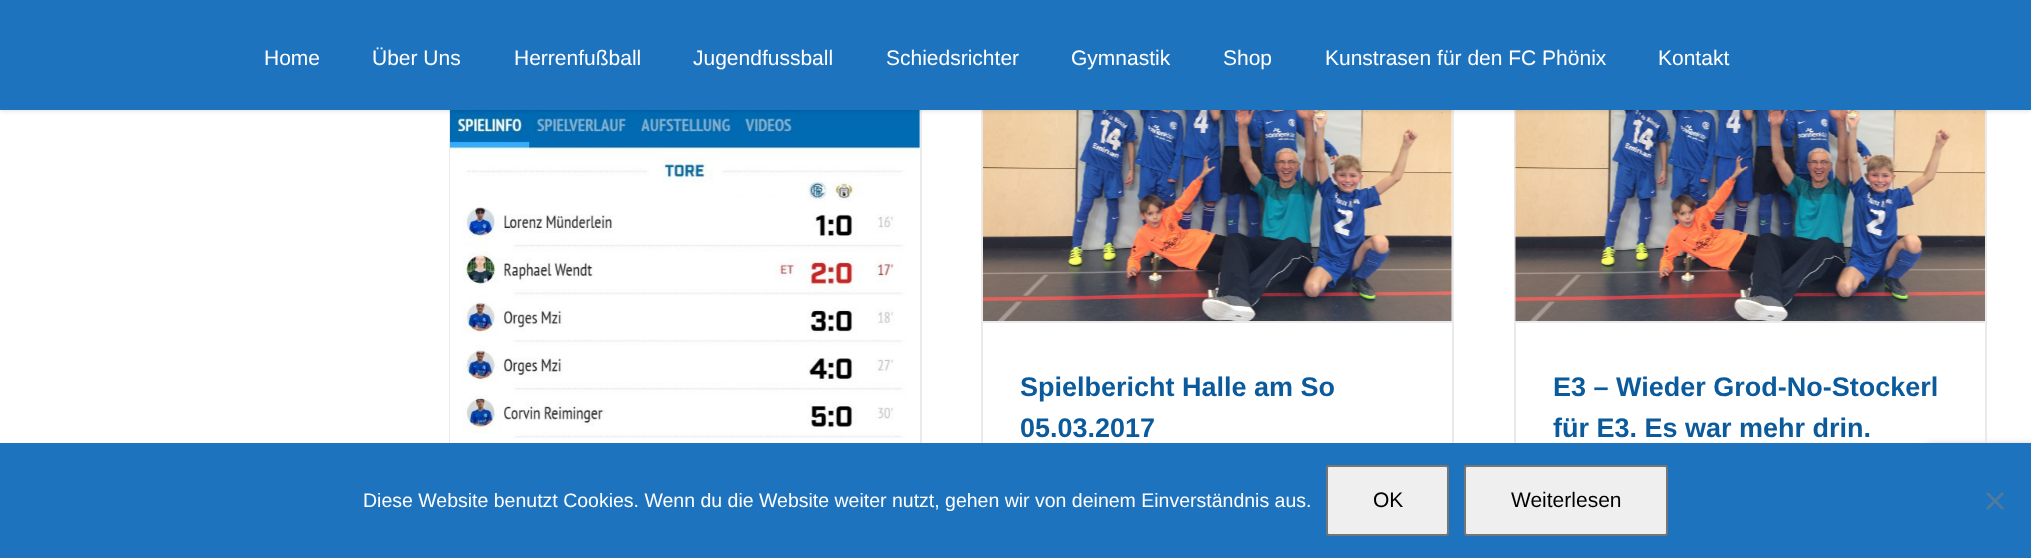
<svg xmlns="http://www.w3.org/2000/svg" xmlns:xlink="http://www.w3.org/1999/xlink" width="2031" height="558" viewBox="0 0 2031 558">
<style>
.cls-1{font:21px Liberation Sans;fill:#ffffff}
.cls-2{font:bold 27px Liberation Sans;fill:#0b5a9b}
.cls-3{font:19.5px Liberation Sans;fill:#ffffff}
.cls-4{font:21px Liberation Sans;fill:#000000}
</style>
<rect width="100%" height="100%" fill="#ffffff"/>
<rect fill="#ebeaea" x="920" y="110" width="2" height="333"/>
<rect fill="#ebeaea" x="449" y="110" width="1" height="333"/>
<image xlink:href="image0.png" x="450" y="110" width="470" height="333"/>
<rect fill="#ebeaea" x="1452" y="110" width="2" height="333"/>
<rect fill="#ebeaea" x="981" y="110" width="2" height="333"/>
<image xlink:href="image1.png" x="983" y="110" width="470" height="211"/>
<rect fill="#808080" filter="blur(4px)" x="1926" y="447" width="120" height="90" rx="3"/>
<rect fill="#ebeaea" x="1985" y="110" width="2" height="333"/>
<rect fill="#ebeaea" x="1514" y="110" width="2" height="333"/>
<image xlink:href="image2.png" x="1514" y="110" width="471" height="211"/>
<rect fill="#000000" fill-opacity="0.12" filter="blur(2px)" x="0" y="2" width="2031" height="109"/>
<rect fill="#1e73be" x="0" y="0" width="2031" height="110"/>
<rect fill="#ebeaea" x="983" y="321" width="469" height="2"/>
<rect fill="#ebeaea" x="1515" y="321" width="470" height="2"/>
<rect fill="#1e73be" x="0" y="443" width="2031" height="115"/>
<rect fill="#efefef" stroke="#767676" stroke-width="2" x="1327" y="466" width="121" height="69" rx="2"/>
<rect fill="#efefef" stroke="#767676" stroke-width="2" x="1465" y="466" width="202" height="69" rx="2"/>
<path fill="#4f7a9f" d="M2002 492L2004 494L1988 510L1986 508Z"/>
<path fill="#4f7a9f" d="M1986 494L1988 492L2004 508L2002 510Z"/>
<text class="cls-1" x="264" y="65">Home</text>
<text class="cls-1" x="372" y="65">Über Uns</text>
<text class="cls-1" x="514" y="65">Herrenfußball</text>
<text class="cls-1" x="693" y="65">Jugendfussball</text>
<text class="cls-1" x="886" y="65">Schiedsrichter</text>
<text class="cls-1" x="1071" y="65">Gymnastik</text>
<text class="cls-1" x="1223" y="65">Shop</text>
<text class="cls-1" x="1325" y="65">Kunstrasen für den FC Phönix</text>
<text class="cls-1" x="1658" y="65">Kontakt</text>
<text class="cls-2"><tspan x="1020" y="396">Spielbericht Halle am So</tspan><tspan x="1020" y="437">05.03.2017</tspan></text>
<text class="cls-2"><tspan x="1553" y="396">E3 – Wieder Grod-No-Stockerl</tspan><tspan x="1553" y="437">für E3. Es war mehr drin.</tspan></text>
<text class="cls-3" x="363" y="507">Diese Website benutzt Cookies. Wenn du die Website weiter nutzt, gehen wir von deinem Einverständnis aus.</text>
<text class="cls-4" x="1373" y="507">OK</text>
<text class="cls-4" x="1511" y="507">Weiterlesen</text>
</svg>
